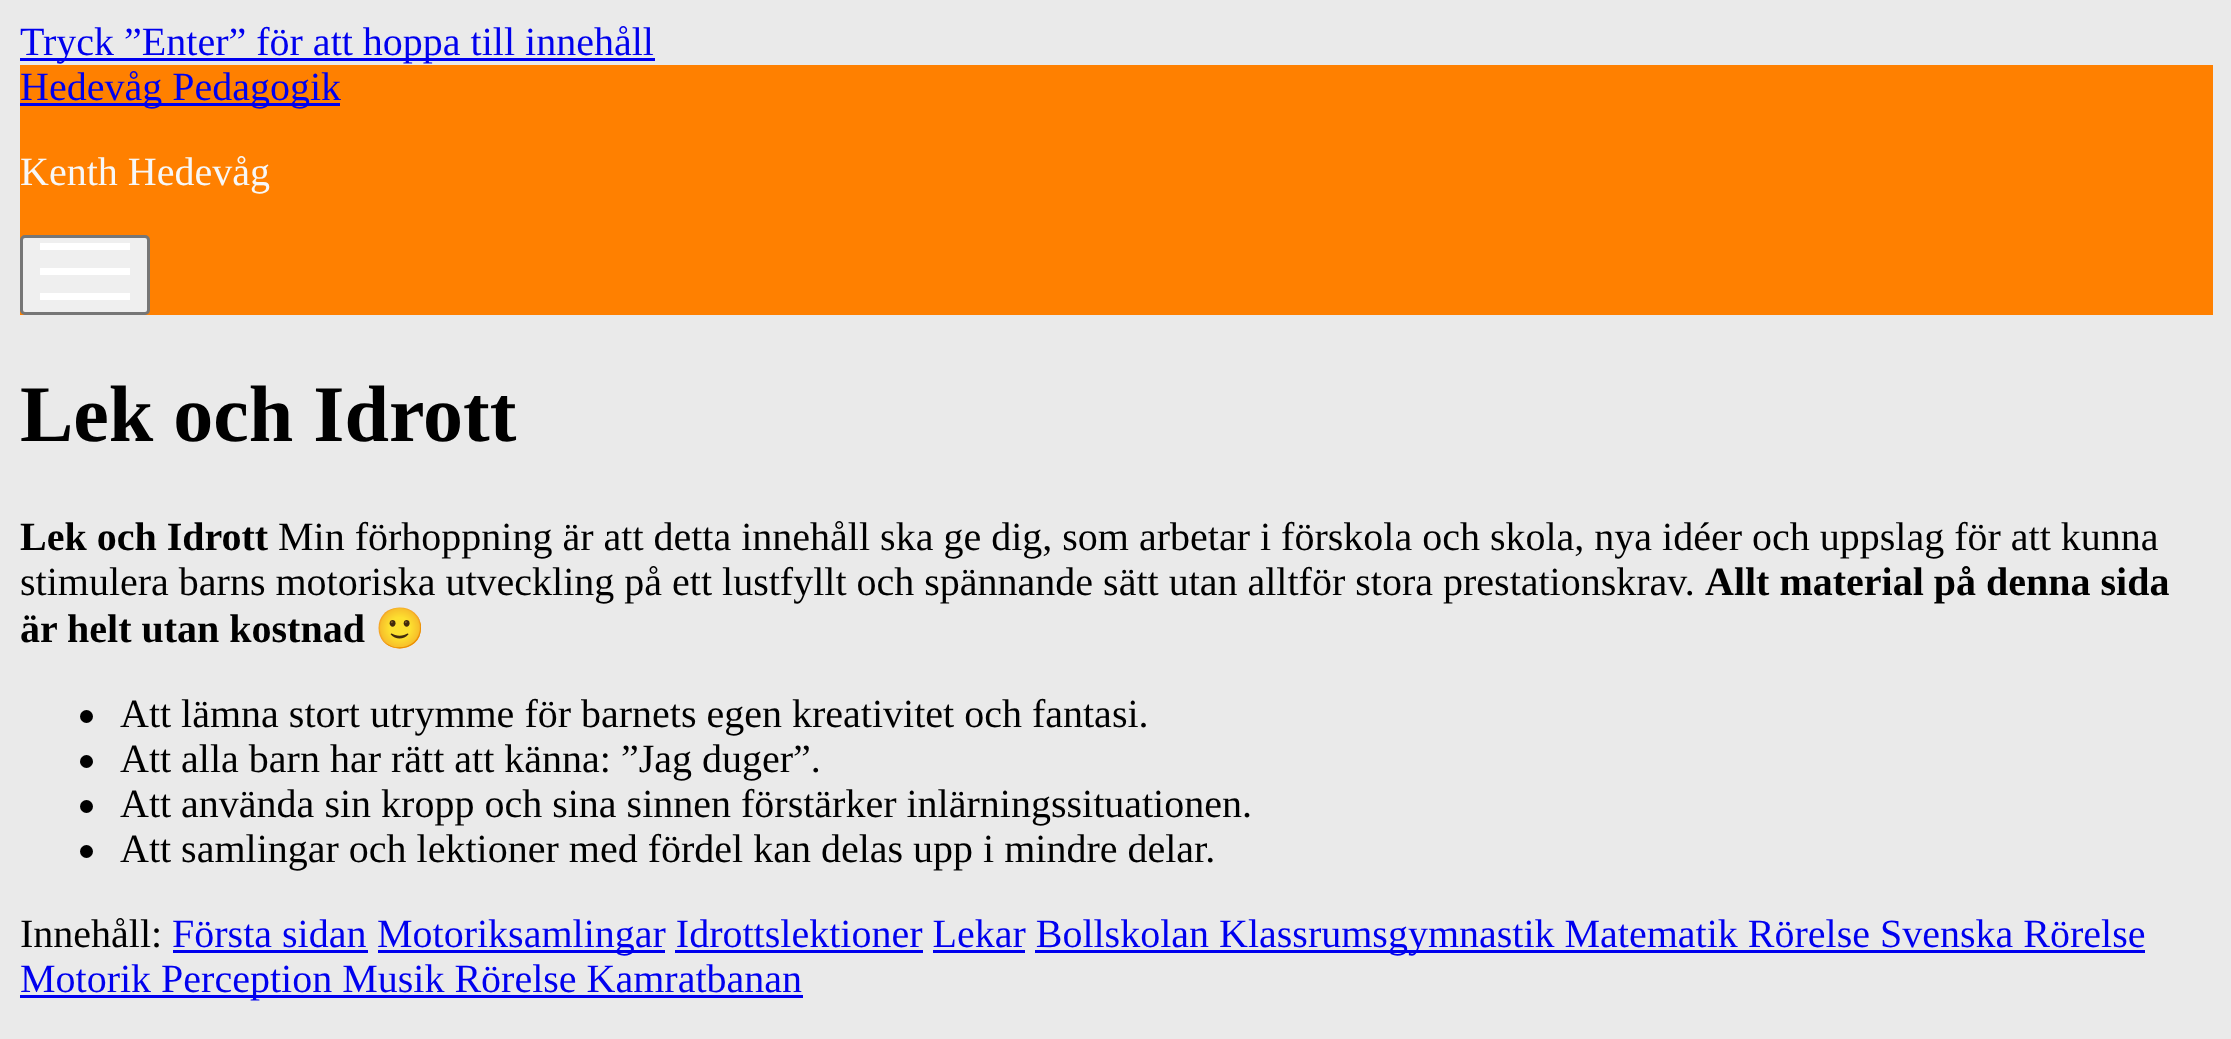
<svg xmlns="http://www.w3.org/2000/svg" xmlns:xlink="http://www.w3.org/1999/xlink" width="2231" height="1039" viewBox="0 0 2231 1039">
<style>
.cls-1{font:40px Liberation Serif;fill:#0000ee}
.cls-2{font:40px Liberation Serif;fill:#f7f7f7}
.cls-3{font:bold 80px Liberation Serif;fill:#000000}
.cls-4{font:bold 40px Liberation Serif;fill:#000000}
.cls-5{font:40px Liberation Serif;fill:#000000}
.cls-6{font:bold 40px Noto Color Emoji;fill:#000000}
</style>
<rect width="100%" height="100%" fill="#eaeaea"/>
<rect fill="#0000ee" x="20" y="58" width="635" height="3"/>
<rect fill="#ff8000" x="20" y="65" width="2193" height="250"/>
<rect fill="#0000ee" x="20" y="103" width="320" height="3"/>
<rect fill="#efefef" stroke="#767676" stroke-width="3" x="21.5" y="236.5" width="127" height="77" rx="3.5"/>
<rect fill="#ffffff" x="40" y="243" width="90" height="7"/>
<rect fill="#ffffff" x="40" y="268" width="90" height="7"/>
<rect fill="#ffffff" x="40" y="293" width="90" height="7"/>
<circle fill="#000000" cx="86.5" cy="716.5" r="6.5"/>
<circle fill="#000000" cx="86.5" cy="761.5" r="6.5"/>
<circle fill="#000000" cx="86.5" cy="806.5" r="6.5"/>
<circle fill="#000000" cx="86.5" cy="851.5" r="6.5"/>
<rect fill="#0000ee" x="173" y="950" width="195" height="3"/>
<rect fill="#0000ee" x="378" y="950" width="287" height="3"/>
<rect fill="#0000ee" x="675" y="950" width="248" height="3"/>
<rect fill="#0000ee" x="933" y="950" width="92" height="3"/>
<rect fill="#0000ee" x="1035" y="950" width="1110" height="3"/>
<rect fill="#0000ee" x="20" y="995" width="783" height="3"/>
<text class="cls-1"><tspan x="20" y="55">Tryck ”Enter” för att hoppa till innehåll</tspan><tspan x="20" y="100">Hedevåg Pedagogik</tspan></text>
<text class="cls-2" x="20" y="185">Kenth Hedevåg</text>
<text class="cls-3" x="20" y="441">Lek och Idrott</text>
<text class="cls-4" x="20" y="550">Lek och Idrott</text>
<text class="cls-5" x="278" y="550">Min förhoppning är att detta innehåll ska ge dig, som arbetar i förskola och skola, nya idéer och uppslag för att kunna</text>
<text class="cls-5" x="20" y="595">stimulera barns motoriska utveckling på ett lustfyllt och spännande sätt utan alltför stora prestationskrav.</text>
<text class="cls-4" x="1705" y="595">Allt material på denna sida</text>
<text class="cls-4" x="20" y="642">är helt utan kostnad</text>
<text class="cls-6" x="375" y="642">🙂</text>
<text class="cls-5"><tspan x="120" y="727">Att lämna stort utrymme för barnets egen kreativitet och fantasi.</tspan><tspan x="120" y="772">Att alla barn har rätt att känna: ”Jag duger”.</tspan><tspan x="120" y="817">Att använda sin kropp och sina sinnen förstärker inlärningssituationen.</tspan><tspan x="120" y="862">Att samlingar och lektioner med fördel kan delas upp i mindre delar.</tspan></text>
<text class="cls-5" x="20" y="947">Innehåll:</text>
<text class="cls-1" x="172" y="947">Första sidan</text>
<text class="cls-1" x="377" y="947">Motoriksamlingar Idrottslektioner Lekar Bollskolan</text>
<text class="cls-1" x="1219" y="947">Klassrumsgymnastik Matematik Rörelse Svenska Rörelse</text>
<text class="cls-1" x="20" y="992">Motorik Perception Musik Rörelse Kamratbanan</text>
</svg>
